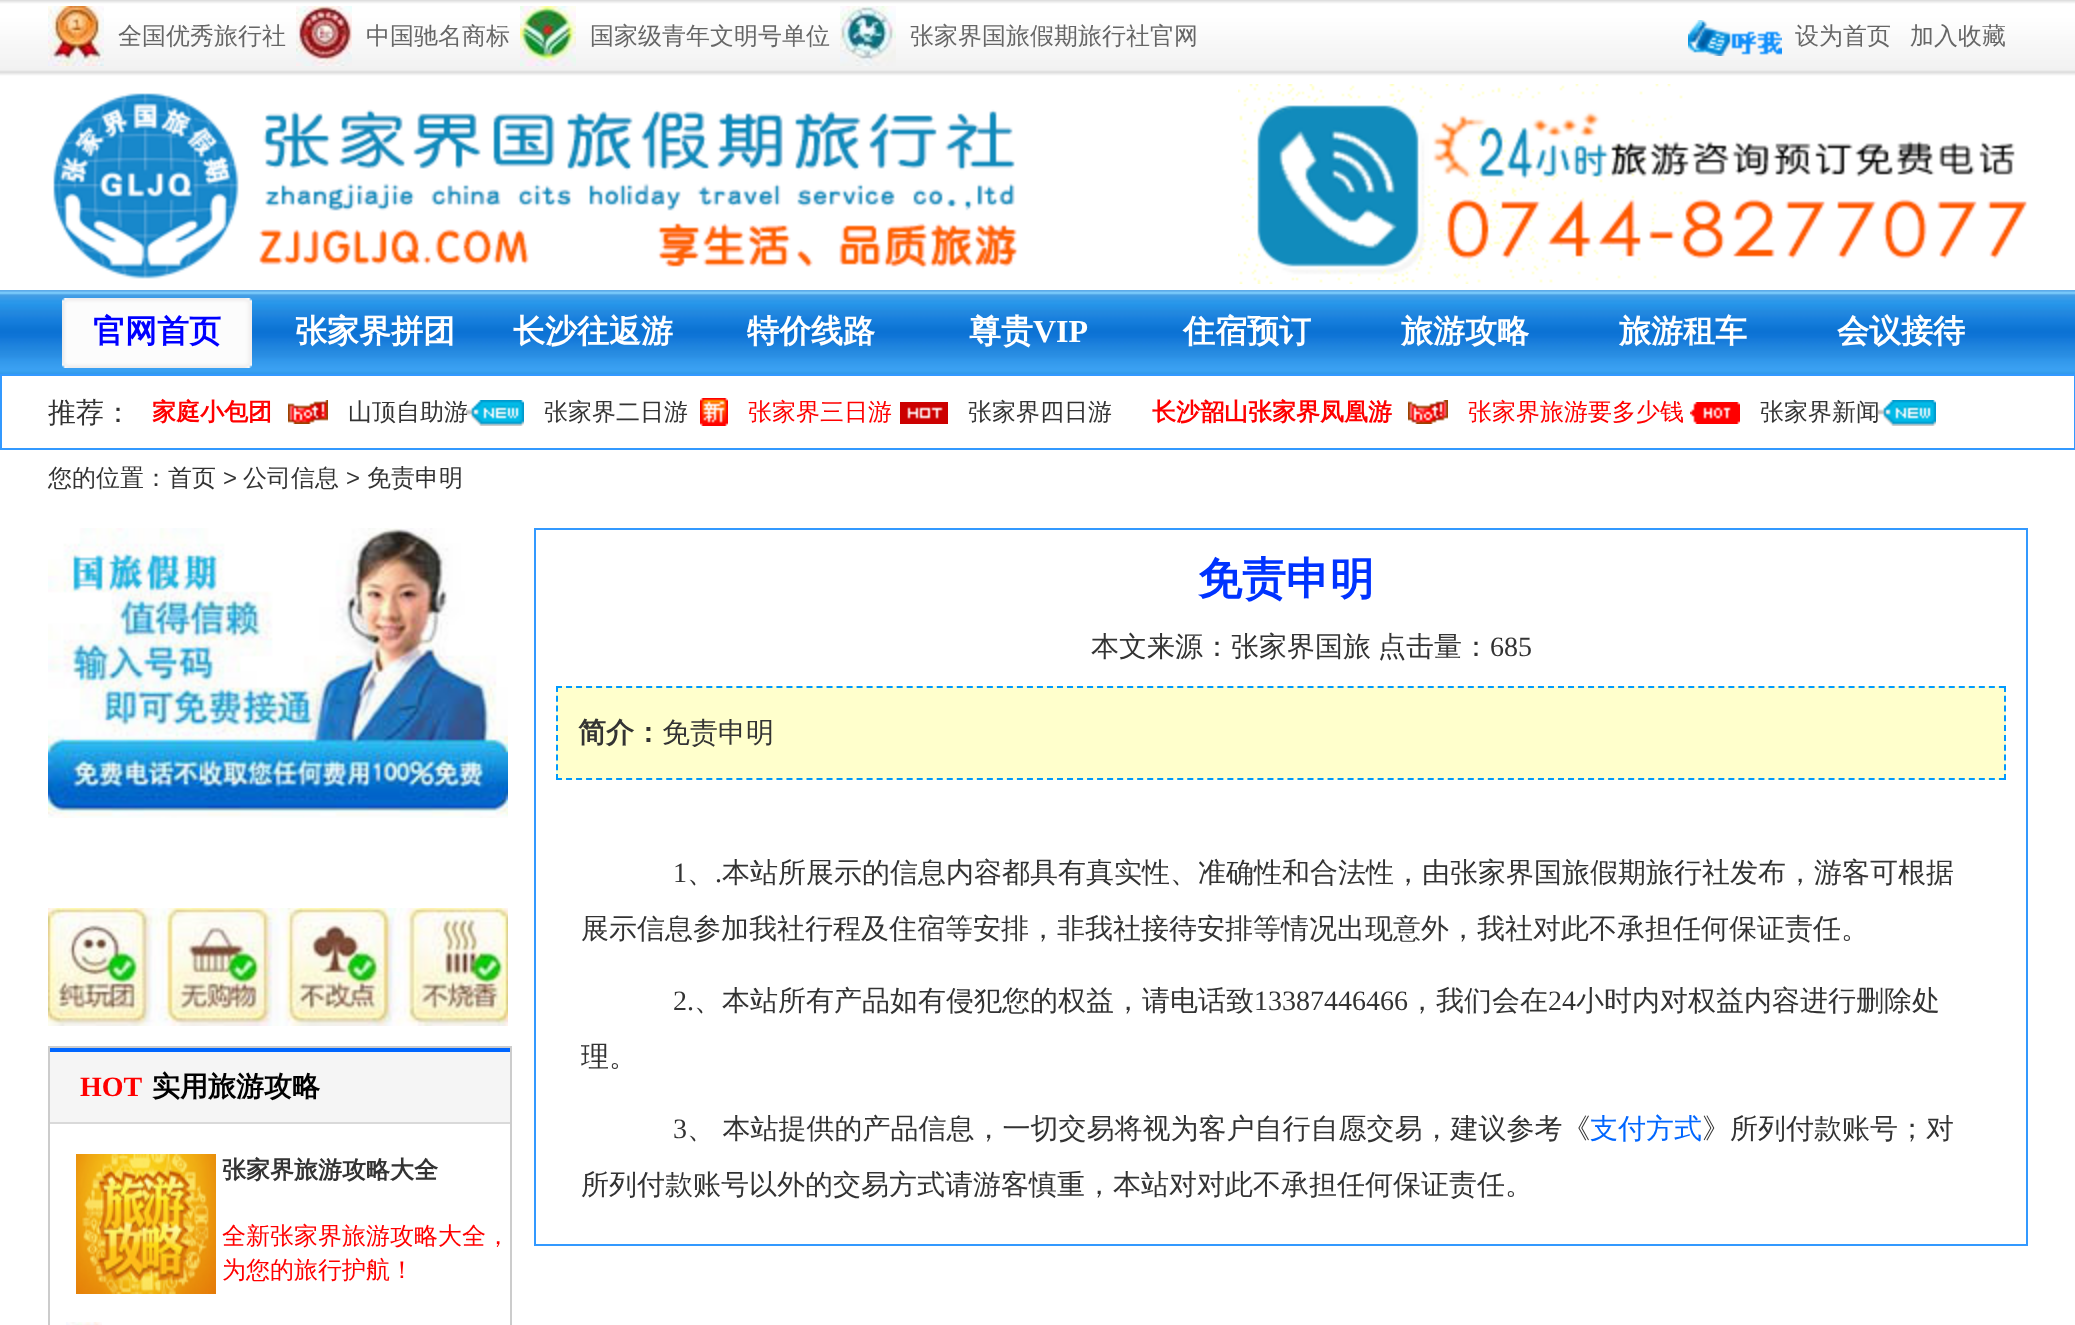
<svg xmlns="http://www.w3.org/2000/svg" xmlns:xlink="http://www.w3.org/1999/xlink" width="2075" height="1325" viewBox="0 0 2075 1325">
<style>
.cls-1{font:500 24px WenQuanYi Zen Hei;fill:#666666}
.cls-2{font:bold 32px WenQuanYi Zen Hei;fill:#0000ff}
.cls-3{font:bold 32px WenQuanYi Zen Hei;fill:#ffffff}
.cls-4{font:bold 32px Liberation Serif;fill:#ffffff}
.cls-5{font:500 28px WenQuanYi Zen Hei;fill:#333333}
.cls-6{font:bold 24px WenQuanYi Zen Hei;fill:#ff0000}
.cls-7{font:500 24px WenQuanYi Zen Hei;fill:#333333}
.cls-8{font:500 24px WenQuanYi Zen Hei;fill:#ff0000}
.cls-9{font:24px Liberation Sans;fill:#333333}
.cls-10{font:bold 28px Liberation Serif;fill:#ff0000}
.cls-11{font:bold 28px WenQuanYi Zen Hei;fill:#000000}
.cls-12{font:bold 24px WenQuanYi Zen Hei;fill:#333333}
.cls-13{font:bold 44px WenQuanYi Zen Hei;fill:#0033ff}
.cls-14{font:28px Liberation Serif;fill:#333333}
.cls-15{font:bold 28px WenQuanYi Zen Hei;fill:#333333}
.cls-16{font:500 28px WenQuanYi Zen Hei;fill:#0066ff}
</style>
<rect width="100%" height="100%" fill="#ffffff"/>
<image xlink:href="image0.png" x="0" y="0" width="2075" height="78"/>
<image xlink:href="image1.png" x="48" y="6" width="56" height="60"/>
<image xlink:href="image2.png" x="296" y="6" width="56" height="60"/>
<image xlink:href="image3.png" x="520" y="6" width="56" height="60"/>
<image xlink:href="image4.png" x="840" y="6" width="56" height="60"/>
<image xlink:href="image5.png" x="1688" y="20" width="94" height="36"/>
<image xlink:href="image6.png" x="53" y="93" width="965" height="186"/>
<image xlink:href="image7.png" x="1238" y="84" width="790" height="200"/>
<image xlink:href="image8.png" x="0" y="290" width="2075" height="84"/>
<image xlink:href="image9.png" x="62" y="298" width="190" height="70"/>
<rect fill="none" stroke="#3399ff" stroke-width="2" x="1" y="375" width="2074" height="74"/>
<image xlink:href="image10.png" x="288" y="400" width="40" height="24"/>
<image xlink:href="image11.png" x="466" y="400" width="58" height="26"/>
<image xlink:href="image12.png" x="700" y="398" width="28" height="28"/>
<image xlink:href="image13.png" x="900" y="402" width="48" height="22"/>
<image xlink:href="image14.png" x="1408" y="400" width="40" height="24"/>
<image xlink:href="image15.png" x="1690" y="402" width="50" height="22"/>
<image xlink:href="image11.png" x="1878" y="400" width="58" height="26"/>
<image xlink:href="image16.png" x="48" y="528" width="460" height="290"/>
<image xlink:href="image17.png" x="48" y="908" width="460" height="118"/>
<rect fill="none" stroke="#cccccc" stroke-width="2" x="49" y="1047" width="462" height="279"/>
<rect fill="#f5f5f5" x="50" y="1052" width="460" height="70"/>
<rect fill="#0066ff" x="50" y="1048" width="460" height="4"/>
<rect fill="#d9d9d9" x="50" y="1122" width="460" height="2"/>
<image xlink:href="image18.png" x="76" y="1154" width="140" height="140"/>
<image xlink:href="image19.png" x="66" y="1322" width="36" height="3"/>
<rect fill="none" stroke="#3399ff" stroke-width="2" x="535" y="529" width="1492" height="716"/>
<rect fill="#ffffcc" x="556" y="686" width="1450" height="94"/>
<path fill="none" stroke="#0099ff" stroke-width="2" stroke-dasharray="6 4.02" d="M556 687H2006"/>
<path fill="none" stroke="#0099ff" stroke-width="2" stroke-dasharray="6 3.78" d="M2005 686V780"/>
<path fill="none" stroke="#0099ff" stroke-width="2" stroke-dasharray="6 4.02" d="M556 779H2006"/>
<path fill="none" stroke="#0099ff" stroke-width="2" stroke-dasharray="6 3.78" d="M557 686V780"/>
<text class="cls-1" x="118" y="44">全国优秀旅行社</text>
<text class="cls-1" x="366" y="44">中国驰名商标</text>
<text class="cls-1" x="590" y="44">国家级青年文明号单位</text>
<text class="cls-1" x="910" y="44">张家界国旅假期旅行社官网</text>
<text class="cls-1" x="1795" y="44">设为首页</text>
<text class="cls-1" x="1910" y="44">加入收藏</text>
<text class="cls-2" x="93" y="342">官网首页</text>
<text class="cls-3" x="295" y="342">张家界拼团</text>
<text class="cls-3" x="513" y="342">长沙往返游</text>
<text class="cls-3" x="747" y="342">特价线路</text>
<text class="cls-3" x="969" y="342">尊贵</text>
<text class="cls-4" x="1033" y="342">VIP</text>
<text class="cls-3" x="1183" y="342">住宿预订</text>
<text class="cls-3" x="1401" y="342">旅游攻略</text>
<text class="cls-3" x="1619" y="342">旅游租车</text>
<text class="cls-3" x="1837" y="342">会议接待</text>
<text class="cls-5" x="48" y="422">推荐：</text>
<text class="cls-6" x="152" y="420">家庭小包团</text>
<text class="cls-7" x="348" y="420">山顶自助游</text>
<text class="cls-7" x="544" y="420">张家界二日游</text>
<text class="cls-8" x="748" y="420">张家界三日游</text>
<text class="cls-7" x="968" y="420">张家界四日游</text>
<text class="cls-6" x="1152" y="420">长沙韶山张家界凤凰游</text>
<text class="cls-8" x="1468" y="420">张家界旅游要多少钱</text>
<text class="cls-7" x="1760" y="420">张家界新闻</text>
<text class="cls-7" x="48" y="486">您的位置：首页</text>
<text class="cls-9" x="223" y="486">&gt;</text>
<text class="cls-7" x="243" y="486">公司信息</text>
<text class="cls-9" x="346" y="486">&gt;</text>
<text class="cls-7" x="367" y="486">免责申明</text>
<text class="cls-10" x="80" y="1096">HOT</text>
<text class="cls-11" x="152" y="1096">实用旅游攻略</text>
<text class="cls-12" x="222" y="1178">张家界旅游攻略大全</text>
<text class="cls-8"><tspan x="222" y="1244">全新张家界旅游攻略大全，</tspan><tspan x="222" y="1278">为您的旅行护航！</tspan></text>
<text class="cls-13" x="1198" y="594">免责申明</text>
<text class="cls-5" x="1091" y="656">本文来源：张家界国旅</text>
<text class="cls-5" x="1378" y="656">点击量：</text>
<text class="cls-14" x="1490" y="656">685</text>
<text class="cls-15" x="578" y="742">简介：</text>
<text class="cls-5" x="662" y="742">免责申明</text>
<text class="cls-14" x="673" y="882">1</text>
<text class="cls-5" x="687" y="882">、</text>
<text class="cls-14" x="715" y="882">.</text>
<text class="cls-5" x="722" y="882">本站所展示的信息内容都具有真实性、准确性和合法性，由张家界国旅假期旅行社发布，游客可根据</text>
<text class="cls-5" x="581" y="938">展示信息参加我社行程及住宿等安排，非我社接待安排等情况出现意外，我社对此不承担任何保证责任。</text>
<text class="cls-14" x="673" y="1010">2.</text>
<text class="cls-5" x="694" y="1010">、本站所有产品如有侵犯您的权益，请电话致</text>
<text class="cls-14" x="1254" y="1010">13387446466</text>
<text class="cls-5" x="1408" y="1010">，我们会在</text>
<text class="cls-14" x="1548" y="1010">24</text>
<text class="cls-5" x="1576" y="1010">小时内对权益内容进行删除处</text>
<text class="cls-5" x="581" y="1066">理。</text>
<text class="cls-14" x="673" y="1138">3</text>
<text class="cls-5" x="687" y="1138" word-spacing="-1">、 本站提供的产品信息，一切交易将视为客户自行自愿交易，建议参考《</text>
<text class="cls-16" x="1590" y="1138">支付方式</text>
<text class="cls-5" x="1702" y="1138">》所列付款账号；对</text>
<text class="cls-5" x="581" y="1194">所列付款账号以外的交易方式请游客慎重，本站对对此不承担任何保证责任。</text>
</svg>
